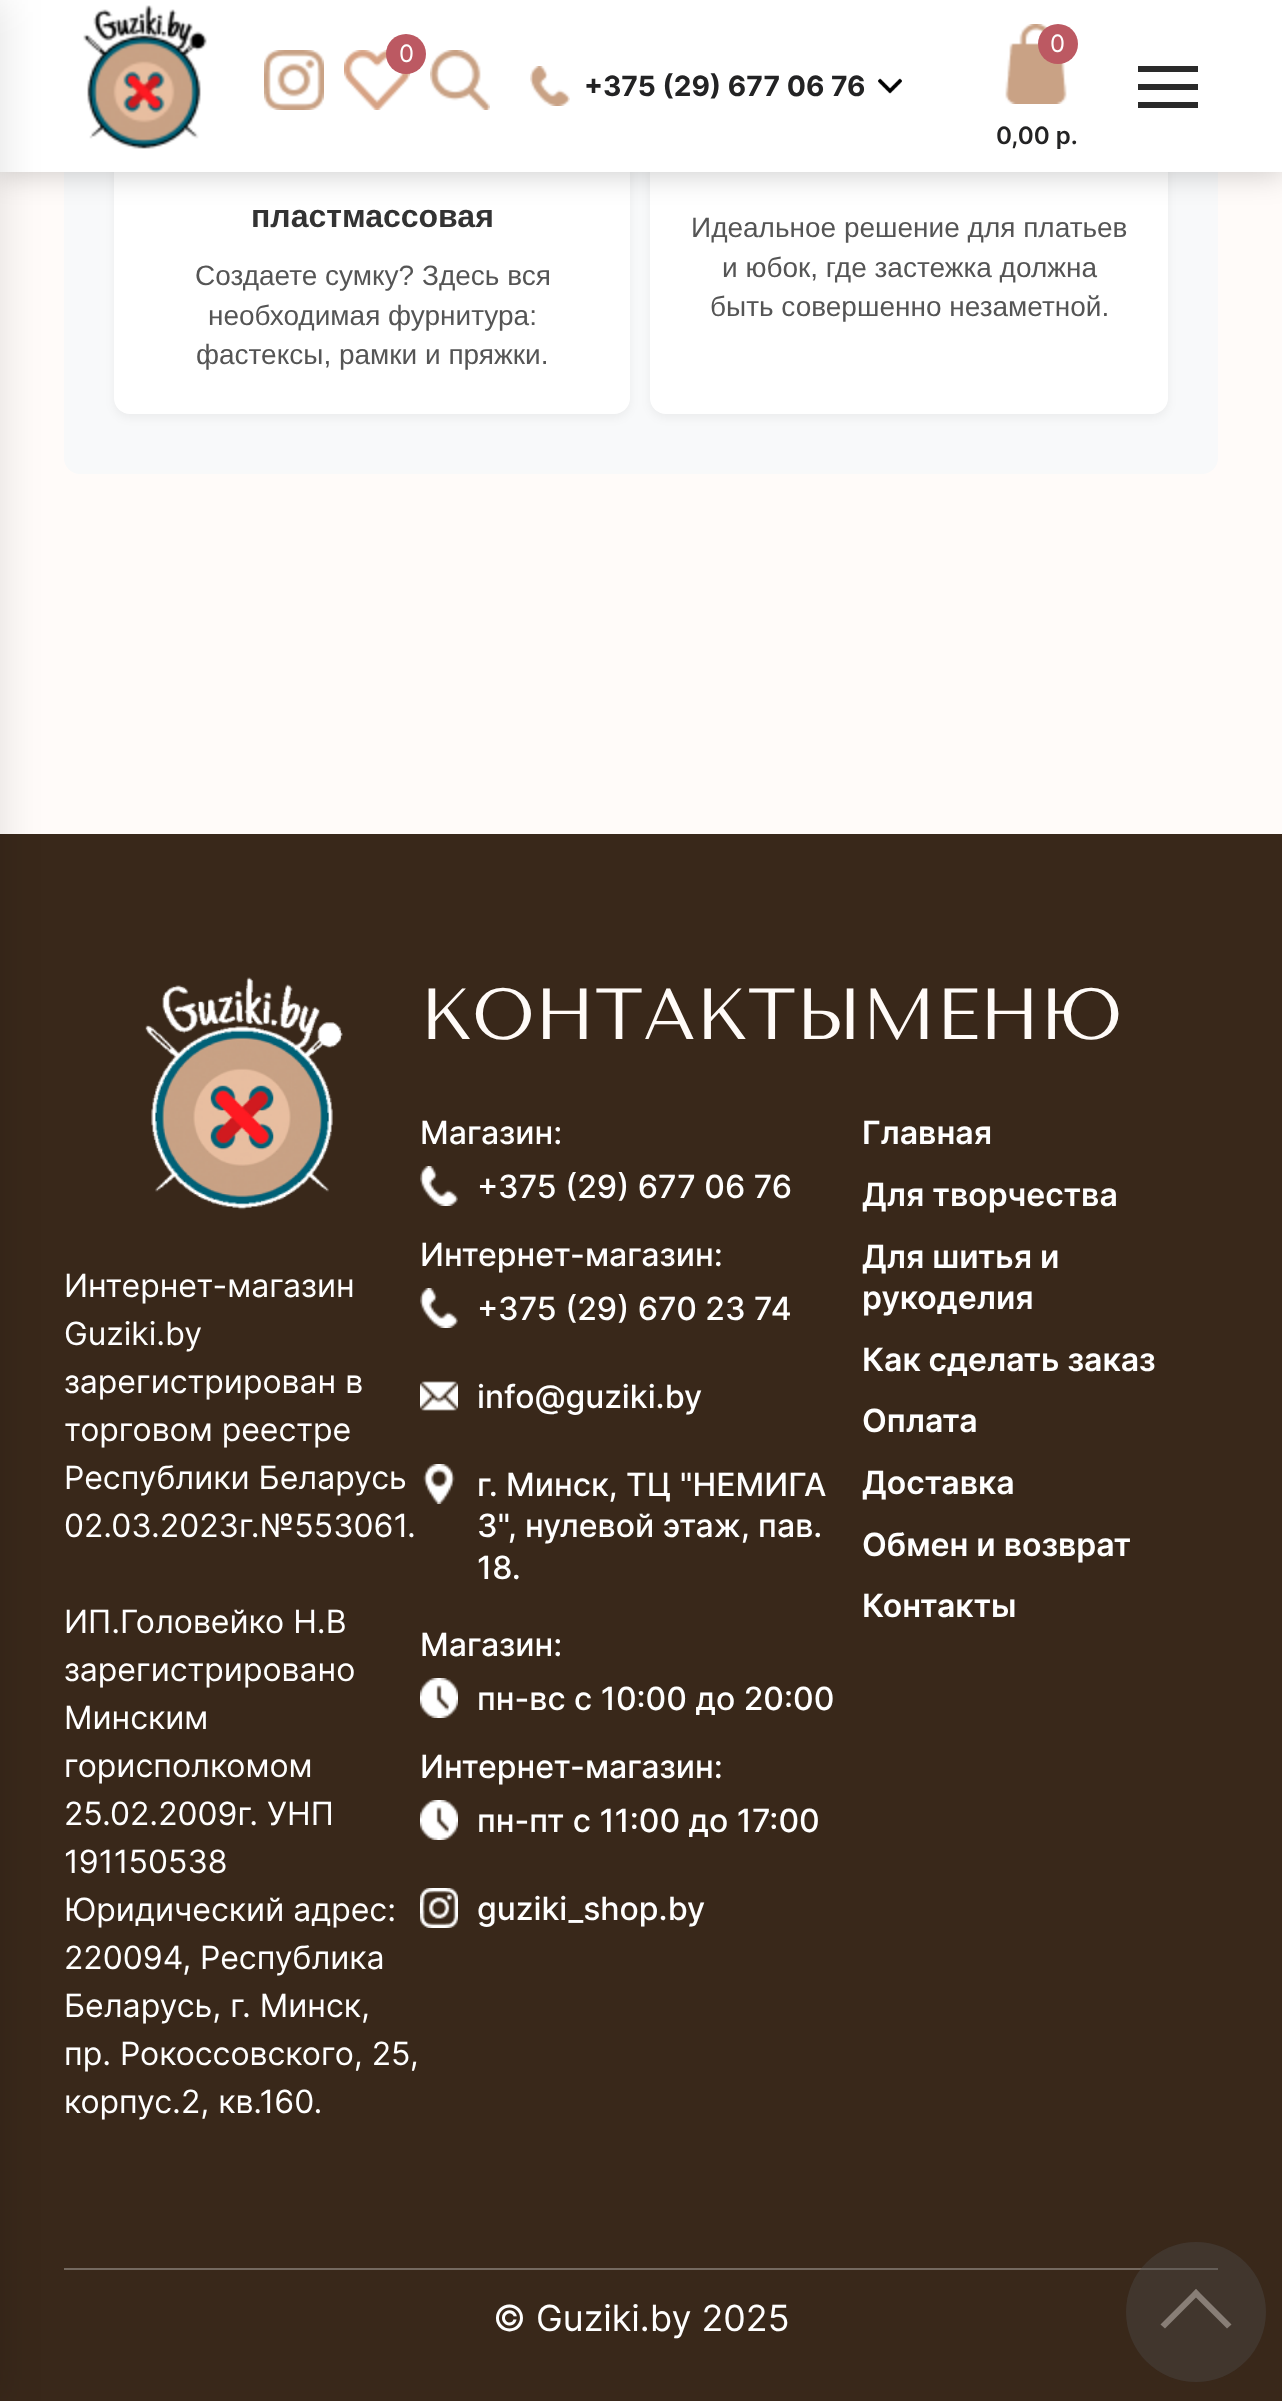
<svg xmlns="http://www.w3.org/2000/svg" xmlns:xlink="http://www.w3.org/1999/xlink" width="1282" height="2401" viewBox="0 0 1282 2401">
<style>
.cls-1{font:24px Inter;fill:#ffffff}
.cls-2{font:600 24px Inter;fill:#232324}
.cls-3{font:bold 28px Inter;fill:#232324}
.cls-4{font:bold 32px Liberation Sans;fill:#333333}
.cls-5{font:28px Liberation Sans;fill:#555555}
.cls-6{font:72px Tenor Sans;fill:#fffbf8}
.cls-7{font:500 32px Inter;fill:#ffffff}
.cls-8{font:32px Inter;fill:#ffffff}
.cls-9{font:600 32px Inter;fill:#ffffff}
.cls-10{font:36px Inter;fill:#ffffff}
</style>
<rect width="100%" height="100%" fill="#fffbf9"/>
<rect fill="#f8f9fa" x="64" y="-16" width="1154" height="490" rx="16"/>
<rect fill="#000000" fill-opacity="0.05" filter="blur(5px)" x="114" y="-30" width="516" height="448" rx="16"/>
<rect fill="#ffffff" x="114" y="-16" width="516" height="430" rx="16"/>
<rect fill="#000000" fill-opacity="0.05" filter="blur(5px)" x="650" y="-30" width="518" height="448" rx="16"/>
<rect fill="#ffffff" x="650" y="-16" width="518" height="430" rx="16"/>
<rect fill="#000000" fill-opacity="0.2" filter="blur(15px)" x="-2" y="-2" width="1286" height="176"/>
<rect fill="#ffffff" x="0" y="0" width="1282" height="172"/>
<rect fill="#39281a" x="0" y="834" width="1282" height="1567"/>
<rect fill="#000000" fill-opacity="0.11" filter="blur(20px)" x="-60" y="-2" width="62" height="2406"/>
<image xlink:href="image0.png" x="83" y="5" width="124" height="144"/>
<image xlink:href="image1.png" x="264" y="50" width="60" height="60"/>
<image xlink:href="image2.png" x="344" y="50" width="66" height="60"/>
<circle fill="#bc5962" cx="406" cy="54" r="20"/>
<image xlink:href="image3.png" x="430" y="50" width="60" height="60"/>
<image xlink:href="image4.png" x="1005" y="24" width="62" height="80"/>
<circle fill="#bc5962" cx="1058" cy="44" r="20"/>
<image xlink:href="image5.png" x="530" y="66" width="40" height="40"/>
<image xlink:href="image6.png" x="878" y="78" width="24" height="16"/>
<rect fill="#2a2a2a" x="1138" y="84" width="60" height="6"/>
<rect fill="#2a2a2a" x="1138" y="66" width="60" height="6"/>
<rect fill="#2a2a2a" x="1138" y="102" width="60" height="6"/>
<rect fill="#74695f" x="64" y="2268" width="1154" height="2"/>
<image xlink:href="image7.png" x="420" y="1166" width="38" height="40"/>
<image xlink:href="image7.png" x="420" y="1288" width="38" height="40"/>
<image xlink:href="image8.png" x="420" y="1381" width="38" height="30"/>
<image xlink:href="image9.png" x="423" y="1464" width="32" height="40"/>
<image xlink:href="image10.png" x="420" y="1678" width="38" height="40"/>
<image xlink:href="image10.png" x="420" y="1800" width="38" height="40"/>
<image xlink:href="image11.png" x="420" y="1888" width="38" height="40"/>
<image xlink:href="image12.png" x="145" y="977" width="198" height="233"/>
<circle fill="#4d4b4c" fill-opacity="0.4" cx="1196" cy="2312" r="70"/>
<path fill="#887e76" d="M1200 2293.5L1165 2328.5L1160.5 2324.5L1196 2289Z"/>
<path fill="#887e76" d="M1231.5 2324.5L1227 2328.5L1192 2293.5L1196 2289Z"/>
<text class="cls-1" x="399" y="62">0</text>
<text class="cls-1" x="1050" y="52">0</text>
<text class="cls-2" x="996" y="144">0,00 р.</text>
<text class="cls-3" x="584" y="96">+375 (29) 677 06 76</text>
<text class="cls-4" x="251" y="227">пластмассовая</text>
<text class="cls-5" x="195" y="285">Создаете сумку? Здесь вся</text>
<text class="cls-5" x="208" y="325">необходимая фурнитура:</text>
<text class="cls-5" x="196" y="364">фастексы, рамки и пряжки.</text>
<text class="cls-5" x="691" y="237">Идеальное решение для платьев</text>
<text class="cls-5" x="722" y="277">и юбок, где застежка должна</text>
<text class="cls-5" x="710" y="316">быть совершенно незаметной.</text>
<text class="cls-6" x="420" y="1039">КОНТАКТЫМЕНЮ</text>
<text class="cls-7" x="420" y="1144">Магазин:</text>
<text class="cls-7" x="477" y="1198">+375 (29) 677 06 76</text>
<text class="cls-7" x="420" y="1266">Интернет-магазин:</text>
<text class="cls-7" x="477" y="1320">+375 (29) 670 23 74</text>
<text class="cls-7" x="477" y="1408">info@guziki.by</text>
<text class="cls-7"><tspan x="477" y="1496">г. Минск, ТЦ "НЕМИГА</tspan><tspan x="477" y="1537">3", нулевой этаж, пав.</tspan><tspan x="477" y="1579">18.</tspan></text>
<text class="cls-7" x="420" y="1656">Магазин:</text>
<text class="cls-7" x="477" y="1710">пн-вс с 10:00 до 20:00</text>
<text class="cls-7" x="420" y="1778">Интернет-магазин:</text>
<text class="cls-7" x="477" y="1832">пн-пт с 11:00 до 17:00</text>
<text class="cls-7" x="477" y="1920">guziki_shop.by</text>
<text class="cls-8"><tspan x="64" y="1297">Интернет-магазин</tspan><tspan x="64" y="1345">Guziki.by</tspan><tspan x="64" y="1393">зарегистрирован в</tspan><tspan x="64" y="1441">торговом реестре</tspan><tspan x="64" y="1489">Республики Беларусь</tspan><tspan x="64" y="1537">02.03.2023г.№553061.</tspan></text>
<text class="cls-8"><tspan x="64" y="1633">ИП.Головейко Н.В</tspan><tspan x="64" y="1681">зарегистрировано</tspan><tspan x="64" y="1729">Минским</tspan><tspan x="64" y="1777">горисполкомом</tspan><tspan x="64" y="1825">25.02.2009г. УНП</tspan><tspan x="64" y="1873">191150538</tspan><tspan x="64" y="1921">Юридический адрес:</tspan><tspan x="64" y="1969">220094, Республика</tspan><tspan x="64" y="2017">Беларусь, г. Минск,</tspan><tspan x="64" y="2065">пр. Рокоссовского, 25,</tspan><tspan x="64" y="2113">корпус.2, кв.160.</tspan></text>
<text class="cls-9"><tspan x="862" y="1144">Главная</tspan><tspan x="862" y="1206">Для творчества</tspan><tspan x="862" y="1268">Для шитья и</tspan><tspan x="862" y="1309">рукоделия</tspan><tspan x="862" y="1371">Как сделать заказ</tspan><tspan x="862" y="1432">Оплата</tspan><tspan x="862" y="1494">Доставка</tspan><tspan x="862" y="1556">Обмен и возврат</tspan><tspan x="862" y="1617">Контакты</tspan></text>
<text class="cls-10" x="493" y="2331">© Guziki.by 2025</text>
</svg>
